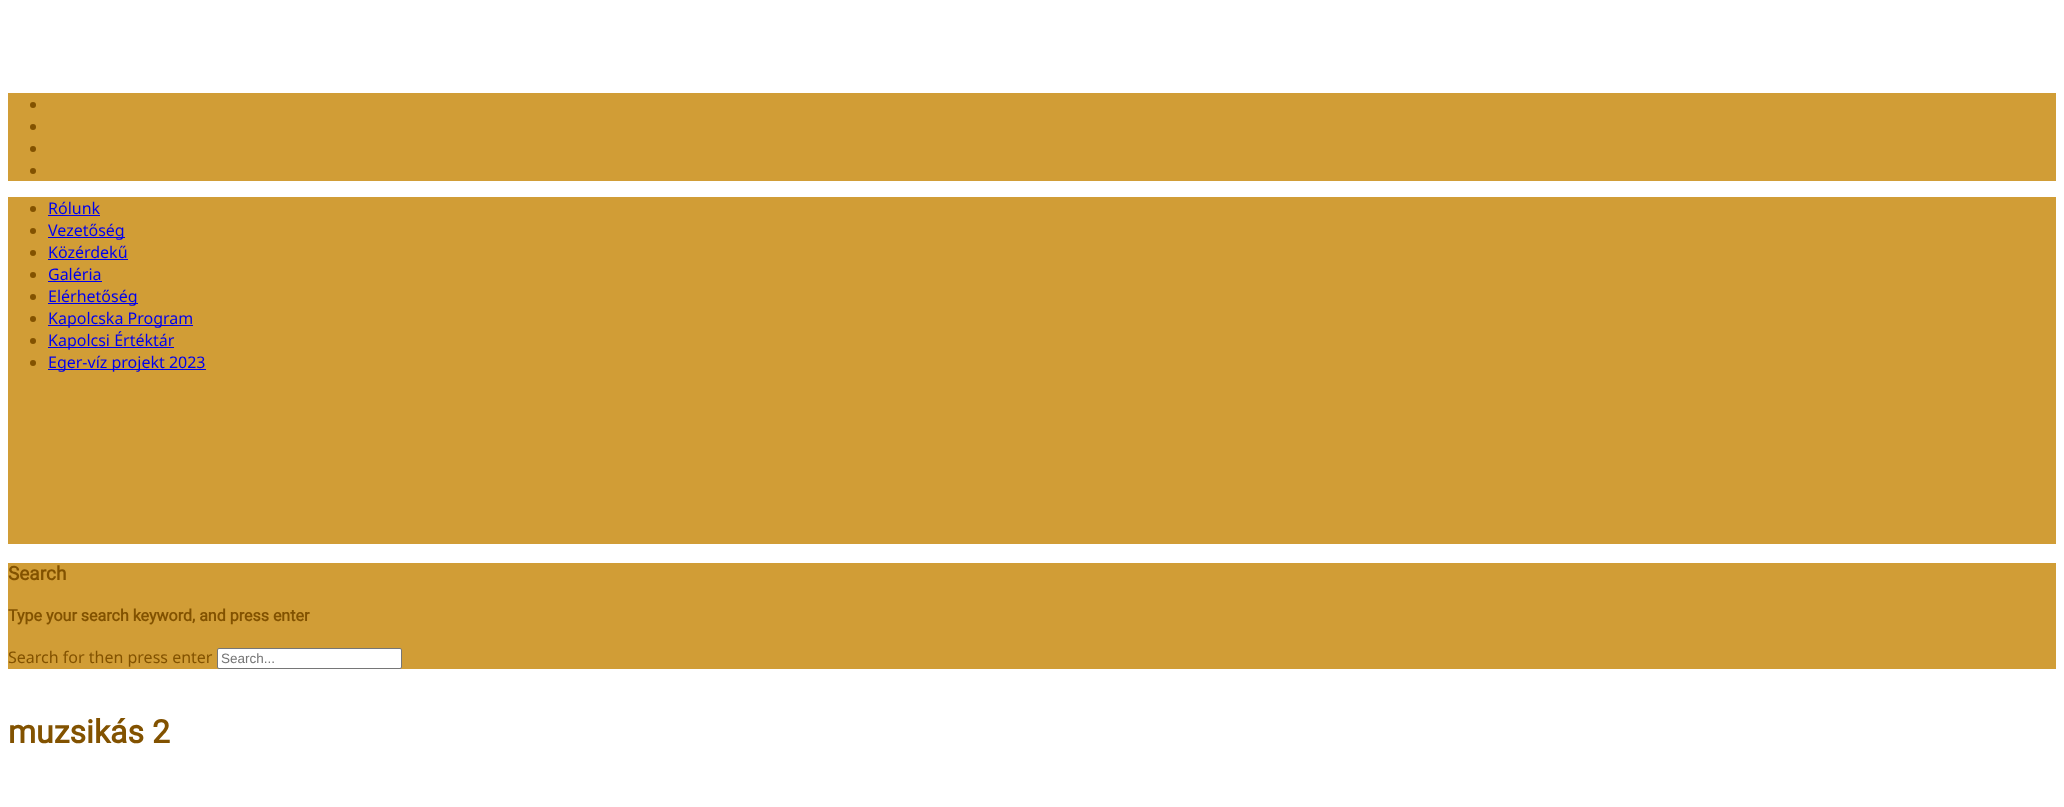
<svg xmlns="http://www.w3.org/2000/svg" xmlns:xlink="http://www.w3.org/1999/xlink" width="2064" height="807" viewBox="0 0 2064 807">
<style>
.cls-1{font:16px Noto Sans;fill:#0000ee}
.cls-2{font:bold 19px Roboto;fill:#825200}
.cls-3{font:bold 16px Roboto;fill:#825200}
.cls-4{font:16px Noto Sans;fill:#825200}
.cls-5{font:13.5px Liberation Sans;fill:#757575}
.cls-6{font:bold 32px Roboto;fill:#825200}
</style>
<rect width="100%" height="100%" fill="#ffffff"/>
<rect fill="#d19d36" x="8" y="93" width="2048" height="88"/>
<circle fill="#825200" cx="33" cy="105" r="3"/>
<circle fill="#825200" cx="33" cy="127" r="3"/>
<circle fill="#825200" cx="33" cy="149" r="3"/>
<circle fill="#825200" cx="33" cy="171" r="3"/>
<rect fill="#d19d36" x="8" y="197" width="2048" height="347"/>
<circle fill="#825200" cx="33" cy="209" r="3"/>
<rect fill="#0000ee" x="48" y="215" width="52" height="1"/>
<circle fill="#825200" cx="33" cy="231" r="3"/>
<rect fill="#0000ee" x="48" y="237" width="77" height="1"/>
<circle fill="#825200" cx="33" cy="253" r="3"/>
<rect fill="#0000ee" x="48" y="259" width="80" height="1"/>
<circle fill="#825200" cx="33" cy="275" r="3"/>
<rect fill="#0000ee" x="48" y="281" width="54" height="1"/>
<circle fill="#825200" cx="33" cy="297" r="3"/>
<rect fill="#0000ee" x="48" y="303" width="90" height="1"/>
<circle fill="#825200" cx="33" cy="319" r="3"/>
<rect fill="#0000ee" x="48" y="325" width="145" height="1"/>
<circle fill="#825200" cx="33" cy="341" r="3"/>
<rect fill="#0000ee" x="48" y="347" width="126" height="1"/>
<circle fill="#825200" cx="33" cy="363" r="3"/>
<rect fill="#0000ee" x="48" y="369" width="158" height="1"/>
<rect fill="#d19d36" x="8" y="563" width="2048" height="106"/>
<rect fill="#ffffff" stroke="#767676" x="217.5" y="648.5" width="184" height="20" rx="1.5"/>
<text class="cls-1"><tspan x="48" y="214">Rólunk</tspan><tspan x="48" y="236">Vezetőség</tspan><tspan x="48" y="258">Közérdekű</tspan><tspan x="48" y="280">Galéria</tspan><tspan x="48" y="302">Elérhetőség</tspan><tspan x="48" y="324">Kapolcska Program</tspan><tspan x="48" y="346">Kapolcsi Értéktár</tspan><tspan x="48" y="368">Eger-víz projekt 2023</tspan></text>
<text class="cls-2" x="8" y="580">Search</text>
<text class="cls-3" x="8" y="621">Type your search keyword, and press enter</text>
<text class="cls-4" x="8" y="663">Search for then press enter</text>
<text class="cls-5" x="221" y="663">Search...</text>
<text class="cls-6" x="8" y="743">muzsikás 2</text>
</svg>
